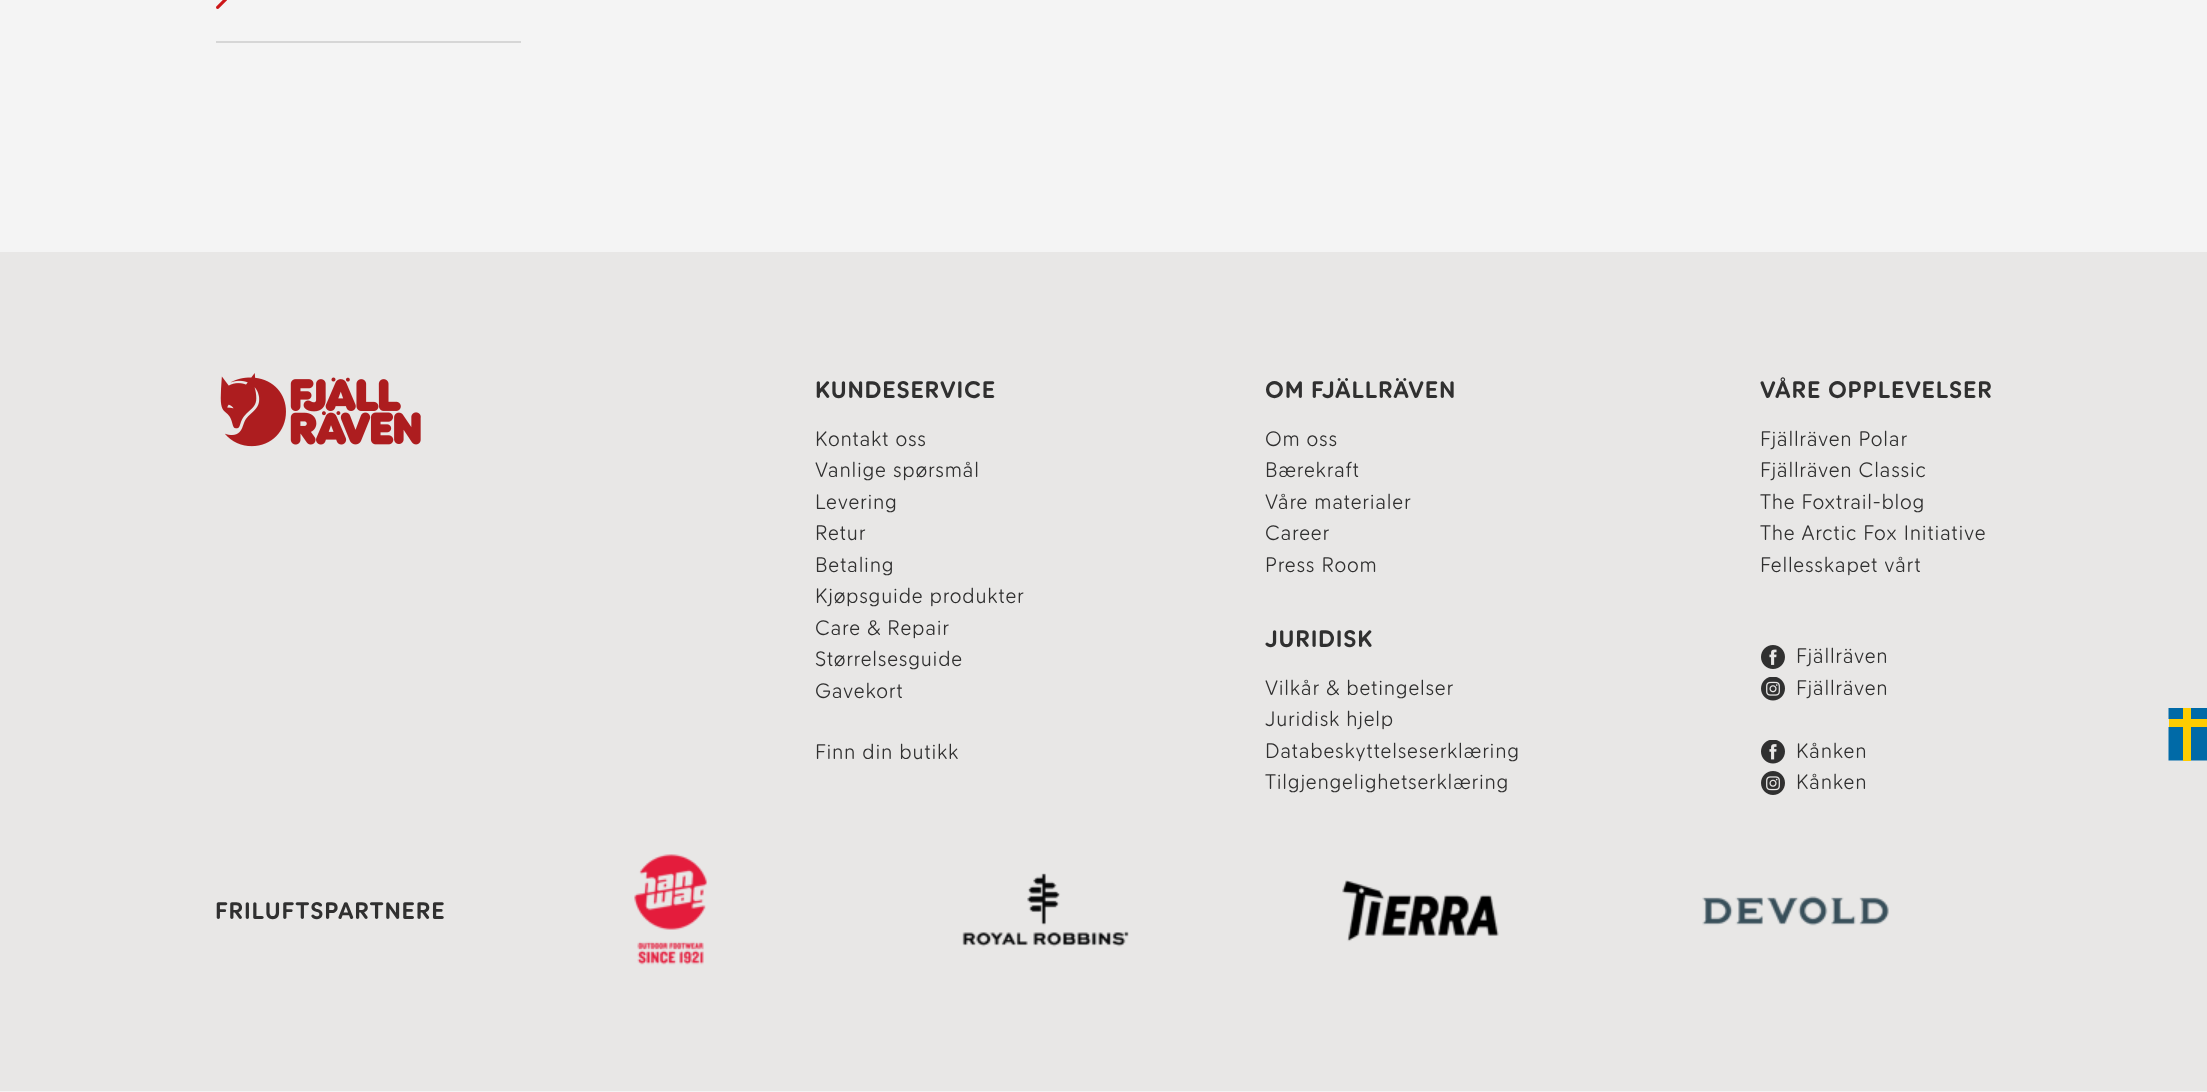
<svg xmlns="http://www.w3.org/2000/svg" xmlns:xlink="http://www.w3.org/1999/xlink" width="2207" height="1092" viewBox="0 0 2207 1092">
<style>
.cls-1{font:bold 24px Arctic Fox;letter-spacing:0.75px;fill:#303030}
.cls-2{font:21px Arctic Fox;letter-spacing:0.75px;fill:#303030}
</style>
<rect width="100%" height="100%" fill="#f4f4f4"/>
<rect fill="#d6d6d6" x="216" y="41" width="305" height="2"/>
<image xlink:href="image0.png" x="216" y="0" width="11" height="9"/>
<rect fill="#e8e7e6" x="0" y="252" width="2207" height="839"/>
<image xlink:href="image1.png" x="220" y="373" width="201" height="74"/>
<image xlink:href="image2.png" x="1761" y="645" width="24" height="24"/>
<image xlink:href="image3.png" x="1761" y="677" width="24" height="24"/>
<image xlink:href="image4.png" x="1761" y="740" width="24" height="24"/>
<image xlink:href="image5.png" x="1761" y="771" width="24" height="24"/>
<image xlink:href="image6.png" x="634" y="854" width="74" height="111"/>
<image xlink:href="image7.png" x="962" y="873" width="167" height="74"/>
<image xlink:href="image8.png" x="1342" y="880" width="157" height="62"/>
<image xlink:href="image9.png" x="1702" y="896" width="187" height="30"/>
<path fill="#006aa7" fill-rule="evenodd" d="M2183 708H2168.5V719H2183ZM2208 708H2191V719H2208Z"/>
<rect fill="#fecc00" x="2183" y="708" width="8" height="11"/>
<rect fill="#fecc00" x="2169" y="719" width="38" height="8"/>
<rect fill="#fecc00" x="2183" y="727" width="8" height="34"/>
<path fill="#006aa7" fill-rule="evenodd" d="M2183 727H2168.5V760.5H2183ZM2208 727H2191V760.5H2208Z"/>
<text class="cls-1" x="815" y="398">KUNDESERVICE</text>
<text class="cls-2"><tspan x="815" y="446">Kontakt oss</tspan><tspan x="815" y="477">Vanlige spørsmål</tspan><tspan x="815" y="509">Levering</tspan><tspan x="815" y="540">Retur</tspan><tspan x="815" y="572">Betaling</tspan><tspan x="815" y="603">Kjøpsguide produkter</tspan><tspan x="815" y="635">Care &amp; Repair</tspan><tspan x="815" y="666">Størrelsesguide</tspan><tspan x="815" y="698">Gavekort</tspan></text>
<text class="cls-2" x="815" y="759">Finn din butikk</text>
<text class="cls-1" x="1265" y="398">OM FJÄLLRÄVEN</text>
<text class="cls-2"><tspan x="1265" y="446">Om oss</tspan><tspan x="1265" y="477">Bærekraft</tspan><tspan x="1265" y="509">Våre materialer</tspan><tspan x="1265" y="540">Career</tspan><tspan x="1265" y="572">Press Room</tspan></text>
<text class="cls-1" x="1265" y="647">JURIDISK</text>
<text class="cls-2"><tspan x="1265" y="695">Vilkår &amp; betingelser</tspan><tspan x="1265" y="726">Juridisk hjelp</tspan><tspan x="1265" y="758">Databeskyttelseserklæring</tspan><tspan x="1265" y="789">Tilgjengelighetserklæring</tspan></text>
<text class="cls-1" x="1760" y="398">VÅRE OPPLEVELSER</text>
<text class="cls-2"><tspan x="1760" y="446">Fjällräven Polar</tspan><tspan x="1760" y="477">Fjällräven Classic</tspan><tspan x="1760" y="509">The Foxtrail-blog</tspan><tspan x="1760" y="540">The Arctic Fox Initiative</tspan><tspan x="1760" y="572">Fellesskapet vårt</tspan></text>
<text class="cls-2"><tspan x="1796" y="663">Fjällräven</tspan><tspan x="1796" y="695">Fjällräven</tspan></text>
<text class="cls-2"><tspan x="1796" y="758">Kånken</tspan><tspan x="1796" y="789">Kånken</tspan></text>
<text class="cls-1" x="215" y="919">FRILUFTSPARTNERE</text>
</svg>
